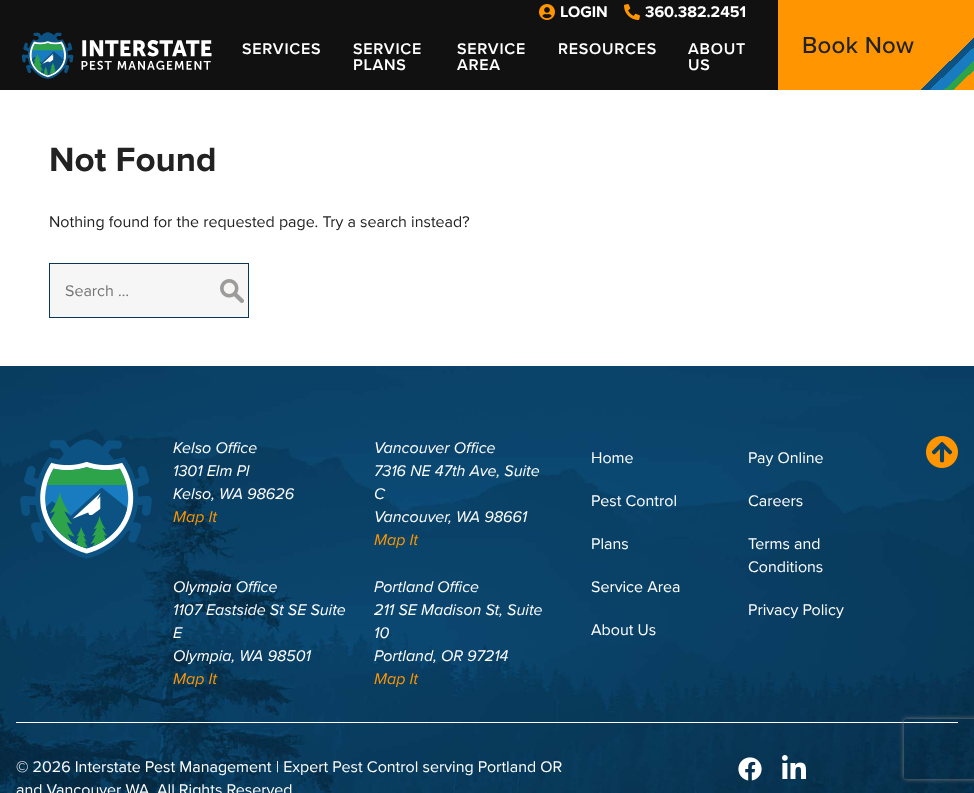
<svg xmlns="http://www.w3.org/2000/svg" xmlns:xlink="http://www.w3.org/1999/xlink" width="974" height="793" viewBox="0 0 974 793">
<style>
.cls-1{font:bold 16px Proxima Nova;fill:#ffffff}
.cls-2{font:600 16px Proxima Nova;letter-spacing:0.75px;fill:#ffffff}
.cls-3{font:500 24px Proxima Nova;letter-spacing:0.25px;fill:#222222}
.cls-4{font:bold 35px Proxima Nova;fill:#222222}
.cls-5{font:16px Proxima Nova;fill:#222222}
.cls-6{font:16px Proxima Nova;fill:#757575}
.cls-7{font:italic 16px Proxima Nova;fill:#ffffff}
.cls-8{font:italic 16px Proxima Nova;fill:#ff9601}
.cls-9{font:16px Proxima Nova;fill:#ffffff}
</style>
<defs>
<linearGradient id="g1" gradientUnits="userSpaceOnUse" x1="770" y1="-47" x2="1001" y2="192"><stop offset="0.61" stop-color="#ff9601"/><stop offset="0.61" stop-color="#0c5383"/><stop offset="0.63" stop-color="#0c5383"/><stop offset="0.63" stop-color="#1a7cc0"/><stop offset="0.66" stop-color="#1a7cc0"/><stop offset="0.66" stop-color="#2da449"/><stop offset="0.68" stop-color="#2da449"/><stop offset="0.68" stop-color="#ff9601"/></linearGradient>
<clipPath id="clip1"><path d="M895 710H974V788H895ZM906 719H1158C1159 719 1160 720 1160 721V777C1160 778 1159 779 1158 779H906C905 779 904 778 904 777V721C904 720 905 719 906 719Z" clip-rule="evenodd"/></clipPath>
</defs>
<rect width="100%" height="100%" fill="#ffffff"/>
<rect fill="#111111" x="0" y="0" width="778" height="90"/>
<image xlink:href="image0.png" x="539" y="4" width="16" height="16"/>
<image xlink:href="image1.png" x="624" y="4" width="16" height="16"/>
<image xlink:href="image2.png" x="21" y="32" width="191" height="47"/>
<rect fill="url(#g1)" x="778" y="0" width="196" height="90"/>
<rect fill="#f6f6f6" x="50" y="264" width="198" height="53"/>
<image xlink:href="image3.png" x="220" y="279" width="24" height="24"/>
<rect fill="none" stroke="#083757" x="49.5" y="263.5" width="199" height="54"/>
<image xlink:href="image4.png" x="0" y="366" width="974" height="427"/>
<image xlink:href="image5.png" x="20" y="439" width="132" height="120"/>
<image xlink:href="image6.png" x="926" y="436" width="32" height="32"/>
<rect fill="#ffffff" x="16" y="722" width="942" height="1"/>
<image xlink:href="image7.png" x="738" y="757" width="24" height="24"/>
<image xlink:href="image8.png" x="782" y="755" width="24" height="24"/>
<g clip-path="url(#clip1)">
<rect fill="#808080" filter="blur(2.5px)" x="904" y="719" width="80" height="60" rx="2"/>
</g>
<text class="cls-1" x="560" y="17">LOGIN</text>
<text class="cls-1" x="645" y="17">360.382.2451</text>
<text class="cls-2" x="242" y="54">SERVICES</text>
<text class="cls-2"><tspan x="353" y="54">SERVICE</tspan><tspan x="353" y="70">PLANS</tspan></text>
<text class="cls-2"><tspan x="457" y="54">SERVICE</tspan><tspan x="457" y="70">AREA</tspan></text>
<text class="cls-2" x="558" y="54">RESOURCES</text>
<text class="cls-2"><tspan x="688" y="54">ABOUT</tspan><tspan x="688" y="70">US</tspan></text>
<text class="cls-3" x="802" y="53">Book Now</text>
<text class="cls-4" x="49" y="171">Not Found</text>
<text class="cls-5" x="49" y="227">Nothing found for the requested page. Try a search instead?</text>
<text class="cls-6" x="65" y="296">Search …</text>
<text class="cls-7"><tspan x="173" y="453">Kelso Office</tspan><tspan x="173" y="476">1301 Elm Pl</tspan><tspan x="173" y="499">Kelso, WA 98626</tspan></text>
<text class="cls-8" x="173" y="522">Map It</text>
<text class="cls-7"><tspan x="374" y="453">Vancouver Office</tspan><tspan x="374" y="476">7316 NE 47th Ave, Suite</tspan><tspan x="374" y="499">C</tspan><tspan x="374" y="522">Vancouver, WA 98661</tspan></text>
<text class="cls-8" x="374" y="545">Map It</text>
<text class="cls-7"><tspan x="173" y="592">Olympia Office</tspan><tspan x="173" y="615">1107 Eastside St SE Suite</tspan><tspan x="173" y="638">E</tspan><tspan x="173" y="661">Olympia, WA 98501</tspan></text>
<text class="cls-8" x="173" y="684">Map It</text>
<text class="cls-7"><tspan x="374" y="592">Portland Office</tspan><tspan x="374" y="615">211 SE Madison St, Suite</tspan><tspan x="374" y="638">10</tspan><tspan x="374" y="661">Portland, OR 97214</tspan></text>
<text class="cls-8" x="374" y="684">Map It</text>
<text class="cls-9" x="591" y="463">Home</text>
<text class="cls-9" x="591" y="506">Pest Control</text>
<text class="cls-9" x="591" y="549">Plans</text>
<text class="cls-9" x="591" y="592">Service Area</text>
<text class="cls-9" x="591" y="635">About Us</text>
<text class="cls-9" x="748" y="463">Pay Online</text>
<text class="cls-9" x="748" y="506">Careers</text>
<text class="cls-9"><tspan x="748" y="549">Terms and</tspan><tspan x="748" y="572">Conditions</tspan></text>
<text class="cls-9" x="748" y="615">Privacy Policy</text>
<text class="cls-9"><tspan x="16" y="772">© 2026 Interstate Pest Management | Expert Pest Control serving Portland OR</tspan><tspan x="16" y="795">and Vancouver WA</tspan></text>
<text class="cls-9" x="157" y="795">All Rights Reserved</text>
</svg>
